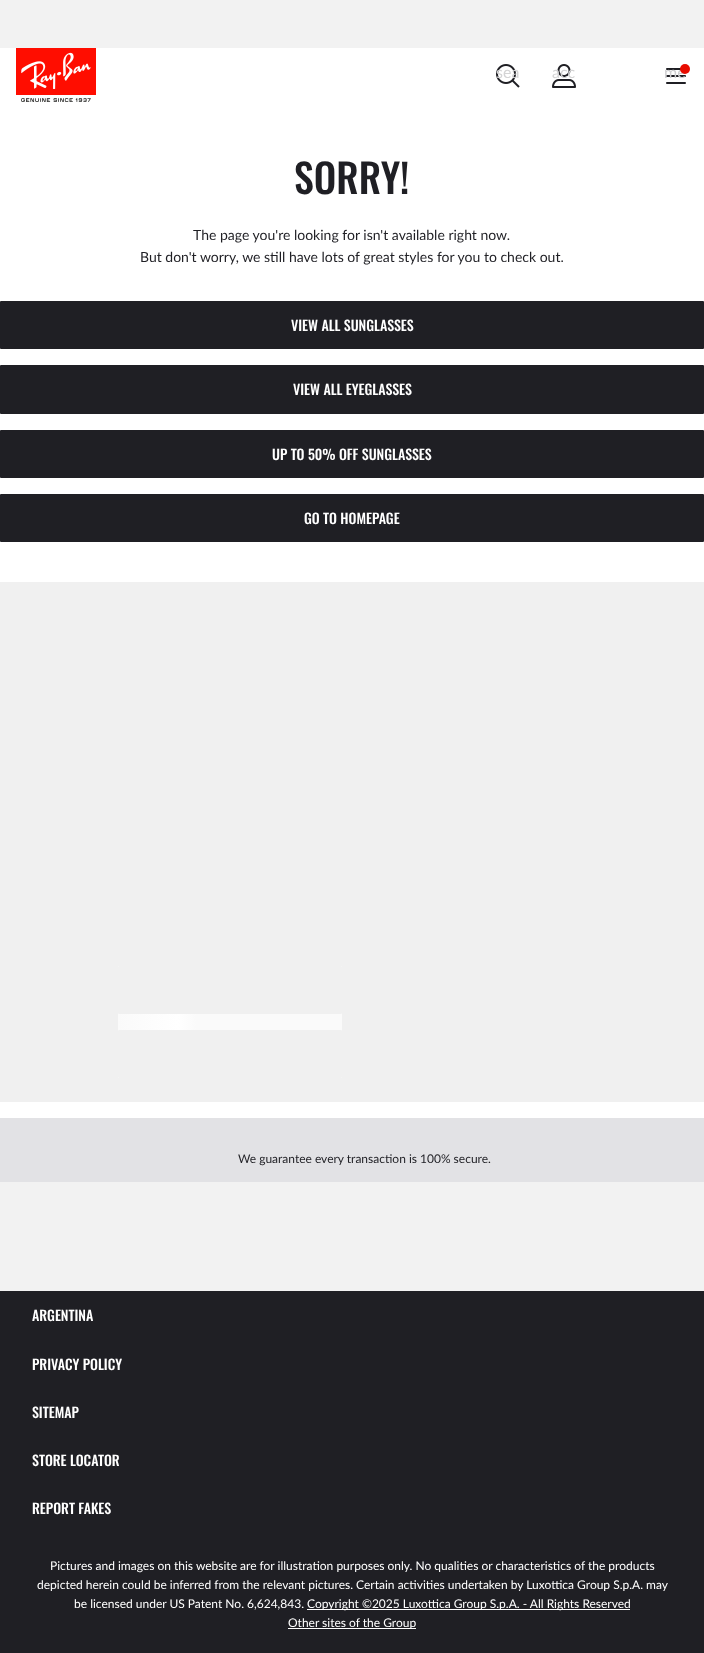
<svg xmlns="http://www.w3.org/2000/svg" xmlns:xlink="http://www.w3.org/1999/xlink" width="704" height="1653" viewBox="0 0 704 1653">
<style>
.cls-1{font:16px Lato;fill:#d4d4d5}
.cls-2{font:16px Lato;fill:#ceced0}
.cls-3{font:500 40px Oswald;fill:#1f1f24}
.cls-4{font:14px Lato;fill:#1f1f24}
.cls-5{font:500 14px Oswald;fill:#ffffff}
.cls-6{font:12px Lato;fill:#1f1f24}
.cls-7{font:12px Lato;fill:#ffffff}
</style>
<defs>
<linearGradient id="g1" gradientUnits="userSpaceOnUse" x1="118" y1="1022" x2="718" y2="1022"><stop offset="0" stop-color="#fafafa"/><stop offset="0.1" stop-color="#ffffff"/><stop offset="0.13" stop-color="#fafafa"/></linearGradient>
</defs>
<rect width="100%" height="100%" fill="#ffffff"/>
<rect fill="#f2f2f2" x="0" y="0" width="704" height="48"/>
<image xlink:href="image0.png" x="16" y="48" width="80" height="54"/>
<image xlink:href="image1.png" x="496" y="64" width="24" height="24"/>
<image xlink:href="image2.png" x="552" y="64" width="24" height="24"/>
<image xlink:href="image3.png" x="666" y="68" width="20" height="16"/>
<rect fill="#1f1f24" x="0" y="301" width="704" height="48" rx="1"/>
<rect fill="#1f1f24" x="0" y="365" width="704" height="49" rx="1"/>
<rect fill="#1f1f24" x="0" y="430" width="704" height="48" rx="1"/>
<rect fill="#1f1f24" x="0" y="494" width="704" height="48" rx="1"/>
<rect fill="#f0f0f0" x="0" y="582" width="704" height="520"/>
<rect fill="url(#g1)" x="118" y="966" width="224" height="112"/>
<rect fill="#f0f0f0" x="118" y="966" width="224" height="48" rx="1"/>
<rect fill="#f0f0f0" x="118" y="1030" width="224" height="48" rx="1"/>
<rect fill="#f2f2f2" x="0" y="1182" width="704" height="109"/>
<rect fill="#e2e2e5" x="0" y="1118" width="704" height="64"/>
<rect fill="#1f1f24" x="0" y="1291" width="704" height="362"/>
<rect fill="#ffffff" x="307" y="1609" width="323" height="1"/>
<rect fill="#ffffff" x="288" y="1628" width="128" height="1"/>
<text class="cls-1" x="496" y="78">sea</text>
<text class="cls-1" x="552" y="78">acc</text>
<text class="cls-2" x="664" y="78">me</text>
<circle fill="#e80c00" cx="685" cy="69" r="5"/>
<text class="cls-3" x="294" y="194">SORRY!</text>
<text class="cls-4" x="193" y="240">The page you're looking for isn't available right now.</text>
<text class="cls-4" x="140" y="262">But don't worry, we still have lots of great styles for you to check out.</text>
<text class="cls-5" x="291" y="331">VIEW ALL SUNGLASSES</text>
<text class="cls-5" x="293" y="395">VIEW ALL EYEGLASSES</text>
<text class="cls-5" x="272" y="460">UP TO 50% OFF SUNGLASSES</text>
<text class="cls-5" x="304" y="524">GO TO HOMEPAGE</text>
<text class="cls-6" x="238" y="1163">We guarantee every transaction is 100% secure.</text>
<text class="cls-5" x="32" y="1321">ARGENTINA</text>
<text class="cls-5" x="32" y="1370">PRIVACY POLICY</text>
<text class="cls-5" x="32" y="1418">SITEMAP</text>
<text class="cls-5" x="32" y="1466">STORE LOCATOR</text>
<text class="cls-5" x="32" y="1514">REPORT FAKES</text>
<text class="cls-7" x="50" y="1570">Pictures and images on this website are for illustration purposes only. No qualities or characteristics of the products</text>
<text class="cls-7" x="37" y="1589">depicted herein could be inferred from the relevant pictures. Certain activities undertaken by Luxottica Group S.p.A. may</text>
<text class="cls-7" x="74" y="1608">be licensed under US Patent No. 6,624,843.</text>
<text class="cls-7" x="307" y="1608">Copyright ©2025 Luxottica Group S.p.A. - All Rights Reserved</text>
<text class="cls-7" x="288" y="1627">Other sites of the Group</text>
</svg>
